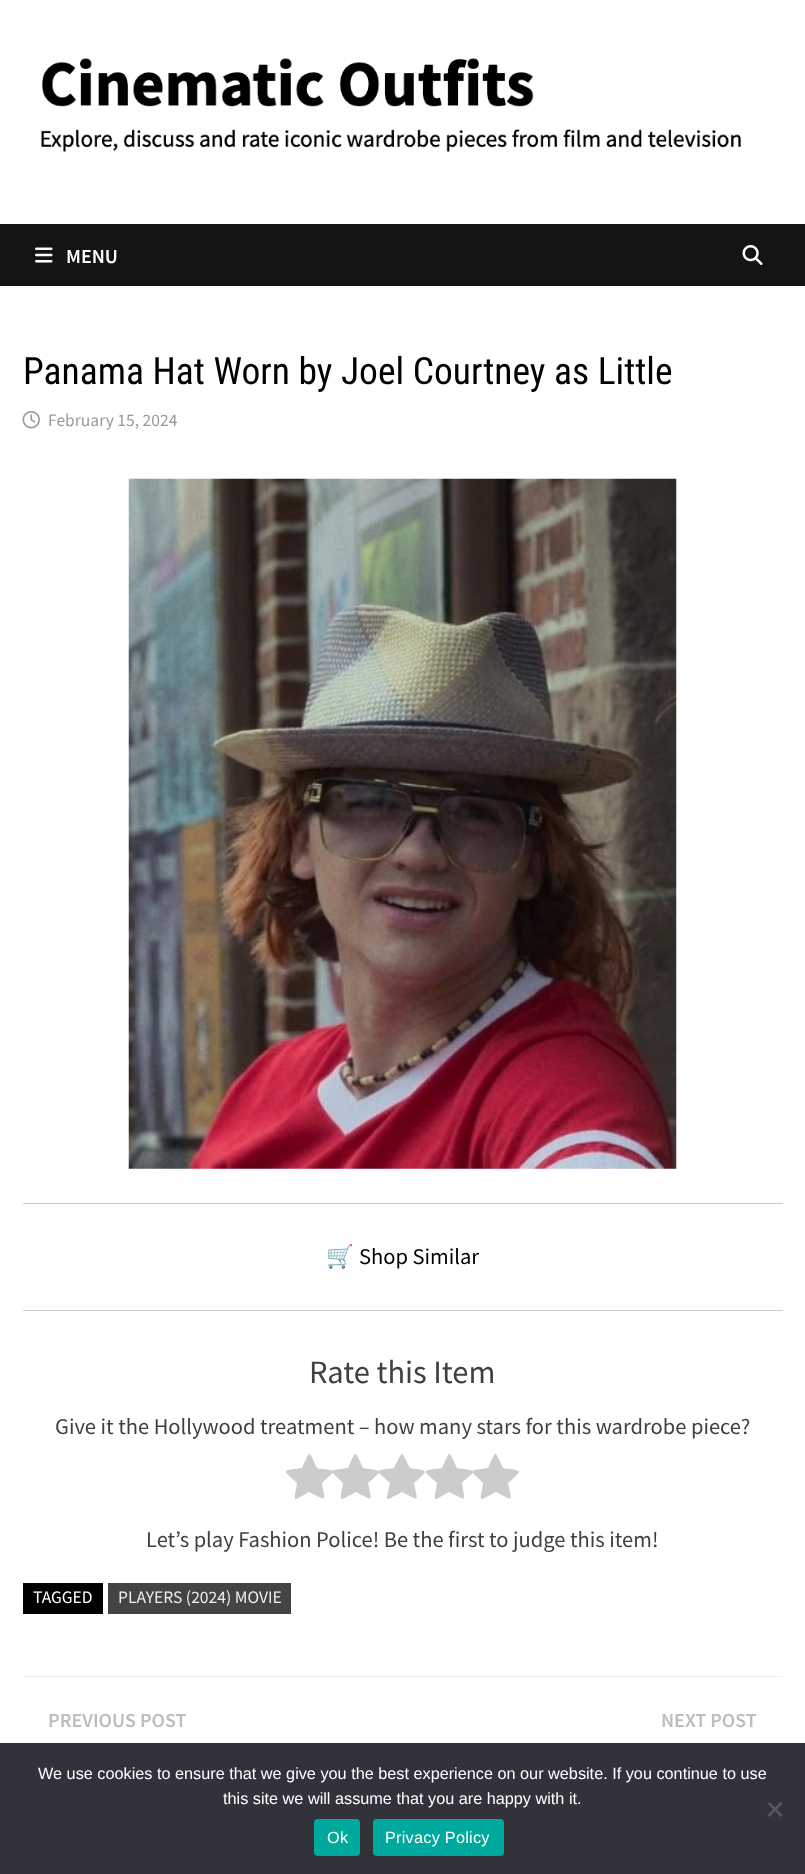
<svg xmlns="http://www.w3.org/2000/svg" xmlns:xlink="http://www.w3.org/1999/xlink" width="805" height="1874" viewBox="0 0 805 1874">
<style>
.cls-1{font:600 20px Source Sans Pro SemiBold;fill:#ffffff}
.cls-2{font:37.5px Roboto Condensed;fill:#000000}
.cls-3{font:17.5px Source Sans Pro;fill:#999999}
.cls-4{font:22.5px Noto Color Emoji;fill:#000000}
.cls-5{font:22.5px Source Sans Pro;fill:#000000}
.cls-6{font:32.5px Source Sans Pro;fill:#404040}
.cls-7{font:22.5px Source Sans Pro;fill:#404040}
.cls-8{font:17.5px Source Sans Pro;fill:#ffffff}
.cls-9{font:17.5px Source Sans Pro;fill:#eeeeee}
.cls-10{font:600 20px Source Sans Pro SemiBold;fill:#bdbdbd}
.cls-11{font:16.25px Liberation Sans;fill:#ffffff}
.cls-12{font:16.25px Liberation Sans;letter-spacing:0.25px;fill:#ffffff}
</style>
<rect width="100%" height="100%" fill="#ffffff"/>
<image xlink:href="image0.png" x="41" y="58" width="700" height="94"/>
<rect fill="#141414" x="0" y="224" width="805" height="62"/>
<image xlink:href="image1.png" x="35" y="247" width="18" height="16"/>
<image xlink:href="image2.png" x="742" y="245" width="21" height="20"/>
<image xlink:href="image3.png" x="22" y="411" width="18" height="18"/>
<image xlink:href="image4.png" x="128" y="478" width="549" height="691"/>
<rect fill="#cccccc" x="23" y="1203" width="760" height="1"/>
<rect fill="#cccccc" x="23" y="1310" width="760" height="1"/>
<path fill="#cccccc" d="M333 1472C333 1474 323 1481 322 1483C325 1503 328 1501 309 1492C291 1502 294 1503 297 1483C282 1469 281 1471 302 1468C311 1449 308 1450 317 1468C319 1469 333 1469 333 1472Z"/>
<path fill="#cccccc" d="M379 1472C379 1474 370 1481 368 1483C372 1503 374 1501 356 1492C337 1502 340 1503 343 1483C329 1469 327 1471 348 1468C357 1449 354 1450 363 1468C366 1469 379 1469 379 1472Z"/>
<path fill="#cccccc" d="M425 1472C425 1474 416 1481 414 1483C418 1503 420 1501 402 1492C383 1502 386 1503 390 1483C375 1469 373 1471 394 1468C404 1449 400 1450 410 1468C412 1469 425 1469 425 1472Z"/>
<path fill="#cccccc" d="M473 1472C473 1474 463 1481 462 1483C465 1503 468 1501 449 1492C431 1502 434 1503 437 1483C422 1469 421 1471 442 1468C451 1449 448 1450 457 1468C459 1469 473 1469 473 1472Z"/>
<path fill="#cccccc" d="M519 1472C519 1474 510 1481 508 1483C512 1503 514 1501 496 1492C477 1502 480 1503 483 1483C469 1469 467 1471 488 1468C497 1449 494 1450 503 1468C506 1469 519 1469 519 1472Z"/>
<rect fill="#000000" x="23" y="1583" width="80" height="31"/>
<rect fill="#444444" x="108" y="1583" width="183" height="31"/>
<rect fill="#eeeeee" x="23" y="1676" width="760" height="1"/>
<rect fill="#32323a" x="0" y="1743" width="805" height="131"/>
<path fill="#59595d" d="M780.5 1802L782.5 1803.5L769.5 1817L767.5 1815Z"/>
<path fill="#59595d" d="M767.5 1803.5L769.5 1802L782.5 1815L780.5 1817Z"/>
<rect fill="#00a99d" x="314" y="1819" width="46" height="37" rx="4"/>
<rect fill="#00a99d" x="373" y="1819" width="131" height="37" rx="4"/>
<text class="cls-1" x="66" y="263">MENU</text>
<text class="cls-2" x="23" y="384">Panama Hat Worn by Joel Courtney as Little</text>
<text class="cls-3" x="48" y="426">February 15, 2024</text>
<text class="cls-4" x="326" y="1264">🛒</text>
<text class="cls-5" x="359" y="1264">Shop Similar</text>
<text class="cls-6" x="309" y="1383">Rate this Item</text>
<text class="cls-7" x="55" y="1434">Give it the Hollywood treatment – how many stars for this wardrobe piece?</text>
<text class="cls-7" x="146" y="1547">Let’s play Fashion Police! Be the first to judge this item!</text>
<text class="cls-8" x="33" y="1603">TAGGED</text>
<text class="cls-9" x="118" y="1603">PLAYERS (2024) MOVIE</text>
<text class="cls-10" x="48" y="1727">PREVIOUS POST</text>
<text class="cls-10" x="661" y="1727">NEXT POST</text>
<text class="cls-11" x="38" y="1779">We use cookies to ensure that we give you the best experience on our website. If you continue to use</text>
<text class="cls-11" x="223" y="1804">this site we will assume that you are happy with it.</text>
<text class="cls-12" x="327" y="1843">Ok</text>
<text class="cls-12" x="385" y="1843">Privacy Policy</text>
</svg>
